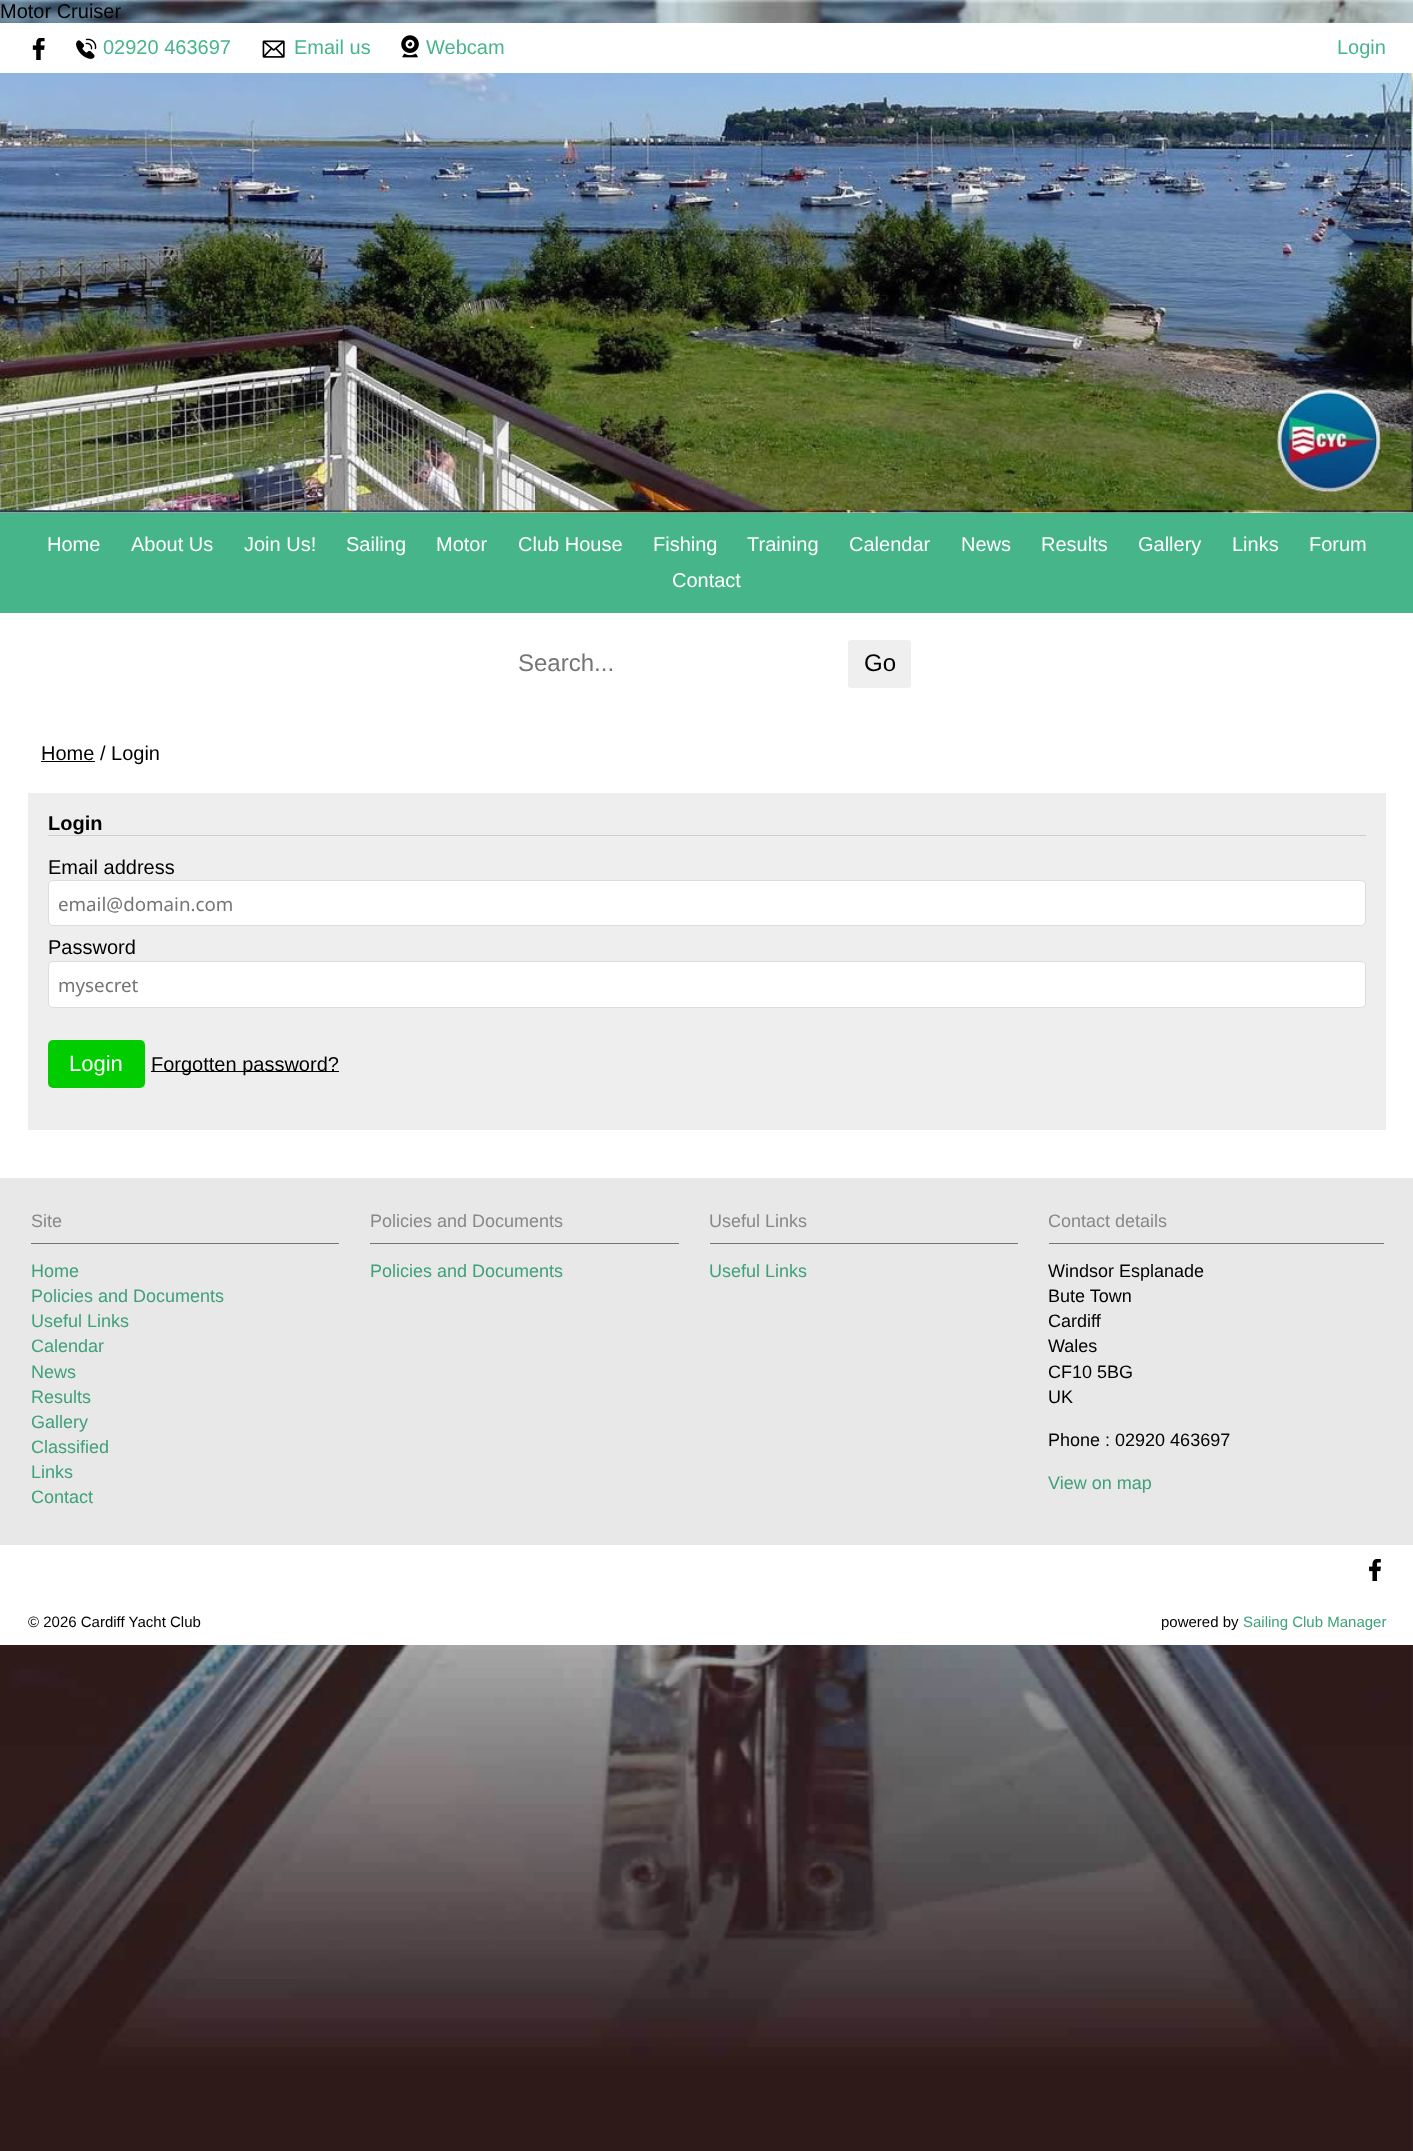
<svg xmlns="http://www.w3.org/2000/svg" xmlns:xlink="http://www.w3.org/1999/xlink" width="1413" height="2151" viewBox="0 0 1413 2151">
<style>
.cls-1{font:20px Liberation Sans;fill:#000000}
.cls-2{font:20px Liberation Sans;fill:#47b58a}
.cls-3{font:20px Liberation Sans;fill:#ffffff}
.cls-4{font:24px Liberation Sans;fill:#757575}
.cls-5{font:24px Liberation Sans;fill:#000000}
.cls-6{font:bold 20px Liberation Sans;fill:#000000}
.cls-7{font:18.75px Noto Sans;fill:#757575}
.cls-8{font:22px Liberation Sans;fill:#ffffff}
.cls-9{font:18px Liberation Sans;fill:#888888}
.cls-10{font:18px Liberation Sans;fill:#3fa17a}
.cls-11{font:18px Liberation Sans;fill:#000000}
.cls-12{font:15px Liberation Sans;fill:#000000}
.cls-13{font:15px Liberation Sans;fill:#3fa17a}
</style>
<rect width="100%" height="100%" fill="#ffffff"/>
<image xlink:href="image0.png" x="0" y="0" width="1413" height="2151"/>
<rect fill="#ffffff" x="0" y="23" width="1413" height="50"/>
<image xlink:href="image1.png" x="32" y="38" width="13" height="22"/>
<image xlink:href="image2.png" x="76" y="38" width="21" height="21"/>
<image xlink:href="image3.png" x="262" y="40" width="23" height="18"/>
<image xlink:href="image4.png" x="401" y="35" width="18" height="23"/>
<rect fill="#ffffff" x="0" y="512" width="1413" height="1"/>
<image xlink:href="image5.png" x="0" y="73" width="1413" height="440"/>
<rect fill="#47b58a" x="0" y="513" width="1413" height="100"/>
<rect fill="#ffffff" x="0" y="613" width="1413" height="565"/>
<rect fill="#efefef" x="848" y="640" width="63" height="48" rx="3"/>
<rect fill="#000000" x="41" y="761" width="54" height="1"/>
<rect fill="#eeeeee" x="28" y="793" width="1358" height="337"/>
<rect fill="#cccccc" x="48" y="835" width="1318" height="1"/>
<rect fill="#ffffff" stroke="#dddddd" x="48.5" y="880.5" width="1317" height="45" rx="4.5"/>
<rect fill="#ffffff" stroke="#dddddd" x="48.5" y="961.5" width="1317" height="46" rx="4.5"/>
<rect fill="#00cc00" x="48" y="1040" width="97" height="48" rx="5"/>
<rect fill="#000000" x="151" y="1071" width="188" height="1"/>
<rect fill="#e8e8e8" x="0" y="1178" width="1413" height="367"/>
<rect fill="#747474" x="31" y="1243" width="308" height="1"/>
<rect fill="#747474" x="370" y="1243" width="309" height="1"/>
<rect fill="#747474" x="710" y="1243" width="308" height="1"/>
<rect fill="#747474" x="1049" y="1243" width="335" height="1"/>
<rect fill="#ffffff" x="0" y="1545" width="1413" height="100"/>
<image xlink:href="image6.png" x="1369" y="1559" width="12" height="22"/>
<text class="cls-1" x="0" y="18">Motor Cruiser</text>
<text class="cls-2" x="103" y="54">02920 463697</text>
<text class="cls-2" x="294" y="54">Email us</text>
<text class="cls-2" x="426" y="54">Webcam</text>
<text class="cls-2" x="1337" y="54">Login</text>
<text class="cls-3" x="47" y="551">Home</text>
<text class="cls-3" x="131" y="551">About Us</text>
<text class="cls-3" x="244" y="551">Join Us!</text>
<text class="cls-3" x="346" y="551">Sailing</text>
<text class="cls-3" x="436" y="551">Motor</text>
<text class="cls-3" x="518" y="551">Club House</text>
<text class="cls-3" x="653" y="551">Fishing</text>
<text class="cls-3" x="747" y="551">Training</text>
<text class="cls-3" x="849" y="551">Calendar</text>
<text class="cls-3" x="961" y="551">News</text>
<text class="cls-3" x="1041" y="551">Results</text>
<text class="cls-3" x="1138" y="551">Gallery</text>
<text class="cls-3" x="1232" y="551">Links</text>
<text class="cls-3" x="1309" y="551">Forum</text>
<text class="cls-3" x="672" y="587">Contact</text>
<text class="cls-4" x="518" y="671">Search...</text>
<text class="cls-5" x="864" y="671">Go</text>
<text class="cls-1" x="41" y="760">Home / Login</text>
<text class="cls-6" x="48" y="830">Login</text>
<text class="cls-1" x="48" y="874">Email address</text>
<text class="cls-7" x="58" y="911">email@domain.com</text>
<text class="cls-1" x="48" y="954">Password</text>
<text class="cls-7" x="58" y="992">mysecret</text>
<text class="cls-8" x="69" y="1071">Login</text>
<text class="cls-1" x="151" y="1071">Forgotten password?</text>
<text class="cls-9" x="31" y="1227">Site</text>
<text class="cls-10"><tspan x="31" y="1277">Home</tspan><tspan x="31" y="1302">Policies and Documents</tspan><tspan x="31" y="1327">Useful Links</tspan><tspan x="31" y="1352">Calendar</tspan><tspan x="31" y="1378">News</tspan><tspan x="31" y="1403">Results</tspan><tspan x="31" y="1428">Gallery</tspan><tspan x="31" y="1453">Classified</tspan><tspan x="31" y="1478">Links</tspan><tspan x="31" y="1503">Contact</tspan></text>
<text class="cls-9" x="370" y="1227">Policies and Documents</text>
<text class="cls-10" x="370" y="1277">Policies and Documents</text>
<text class="cls-9" x="709" y="1227">Useful Links</text>
<text class="cls-10" x="709" y="1277">Useful Links</text>
<text class="cls-9" x="1048" y="1227">Contact details</text>
<text class="cls-11"><tspan x="1048" y="1277">Windsor Esplanade</tspan><tspan x="1048" y="1302">Bute Town</tspan><tspan x="1048" y="1327">Cardiff</tspan><tspan x="1048" y="1352">Wales</tspan><tspan x="1048" y="1378">CF10 5BG</tspan><tspan x="1048" y="1403">UK</tspan></text>
<text class="cls-11" x="1048" y="1446">Phone : 02920 463697</text>
<text class="cls-10" x="1048" y="1489">View on map</text>
<text class="cls-12" x="28" y="1627">© 2026 Cardiff Yacht Club</text>
<text class="cls-12" x="1161" y="1627">powered by</text>
<text class="cls-13" x="1243" y="1627">Sailing Club Manager</text>
</svg>
